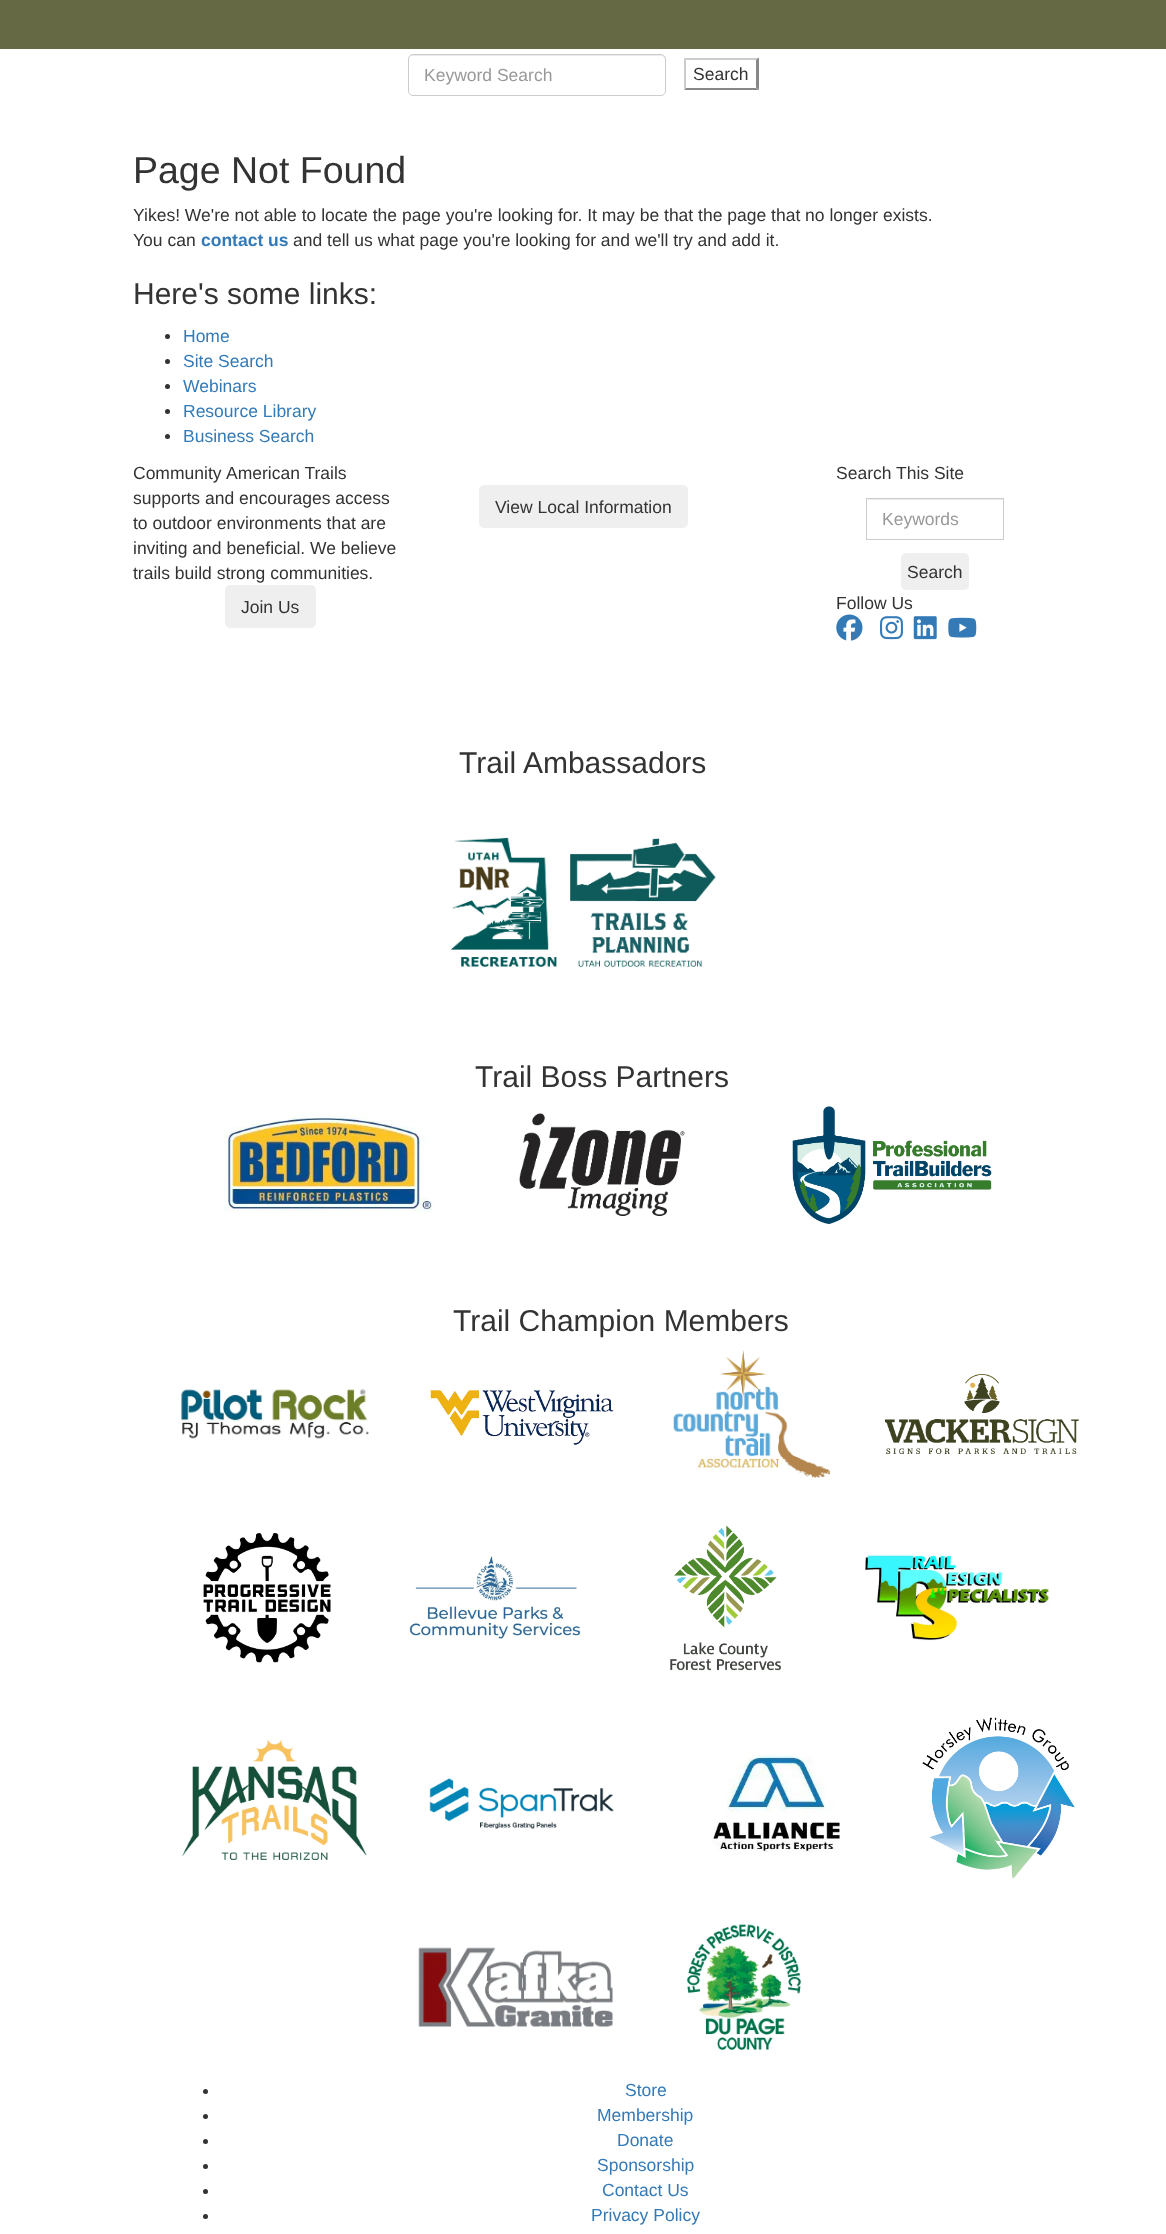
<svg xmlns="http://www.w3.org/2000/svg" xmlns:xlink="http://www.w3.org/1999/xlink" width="1166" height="2234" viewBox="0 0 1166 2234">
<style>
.cls-1{font:17.5px Liberation Sans;fill:#999999}
.cls-2{font:17.5px Liberation Sans;fill:#333333}
.cls-3{font:37.5px Liberation Sans;fill:#333333}
.cls-4{font:bold 17.5px Liberation Sans;fill:#337ab7}
.cls-5{font:30px Liberation Sans;fill:#333333}
.cls-6{font:17.5px Liberation Sans;fill:#337ab7}
</style>
<rect width="100%" height="100%" fill="#ffffff"/>
<rect fill="#666a44" x="0" y="0" width="1166" height="49"/>
<path fill="#ececec" d="M412 56H662L664 58L665 60V59C665 57 663 55 661 55H413C411 55 409 57 409 59V60C409 58 410 56 412 56Z"/>
<rect fill="none" stroke="#cccccc" x="408.5" y="54.5" width="257" height="41" rx="4.5"/>
<path fill="#cccccc" d="M684 58H759L756 60H686Z"/>
<path fill="#888888" d="M759 57.5V90L756 87.5V60Z"/>
<path fill="#888888" d="M759 90H684L686 88H756Z"/>
<path fill="#cccccc" d="M684 90V57.5L686 60V87.5Z"/>
<circle fill="#333333" cx="167.5" cy="336.5" r="2.5"/>
<circle fill="#333333" cx="167.5" cy="361.5" r="2.5"/>
<circle fill="#333333" cx="167.5" cy="386.5" r="2.5"/>
<circle fill="#333333" cx="167.5" cy="411.5" r="2.5"/>
<circle fill="#333333" cx="167.5" cy="436.5" r="2.5"/>
<rect fill="#efefef" x="225" y="585" width="91" height="43" rx="5"/>
<rect fill="#efefef" x="479" y="485" width="209" height="43" rx="5"/>
<rect fill="#ececec" x="868" y="499" width="135" height="1"/>
<rect fill="none" stroke="#cccccc" x="866.5" y="498.5" width="137" height="41"/>
<rect fill="#efefef" x="901" y="553" width="68" height="37" rx="5"/>
<image xlink:href="image0.png" x="836" y="614" width="27" height="27"/>
<image xlink:href="image1.png" x="880" y="616" width="23" height="24"/>
<image xlink:href="image2.png" x="913" y="616" width="24" height="24"/>
<image xlink:href="image3.png" x="948" y="617" width="29" height="21"/>
<image xlink:href="image4.png" x="450" y="837" width="266" height="130"/>
<image xlink:href="image5.png" x="224" y="1115" width="209" height="98"/>
<image xlink:href="image6.png" x="519" y="1113" width="166" height="103"/>
<image xlink:href="image7.png" x="792" y="1106" width="200" height="118"/>
<image xlink:href="image8.png" x="181" y="1388" width="188" height="51"/>
<image xlink:href="image9.png" x="430" y="1390" width="184" height="55"/>
<image xlink:href="image10.png" x="673" y="1350" width="157" height="128"/>
<image xlink:href="image11.png" x="885" y="1374" width="194" height="80"/>
<image xlink:href="image12.png" x="203" y="1532" width="128" height="131"/>
<image xlink:href="image13.png" x="409" y="1556" width="172" height="83"/>
<image xlink:href="image14.png" x="670" y="1525" width="111" height="146"/>
<image xlink:href="image15.png" x="865" y="1554" width="185" height="87"/>
<image xlink:href="image16.png" x="182" y="1739" width="185" height="121"/>
<image xlink:href="image17.png" x="429" y="1778" width="185" height="51"/>
<image xlink:href="image18.png" x="711" y="1754" width="129" height="99"/>
<image xlink:href="image19.png" x="922" y="1717" width="153" height="162"/>
<image xlink:href="image20.png" x="418" y="1947" width="195" height="80"/>
<image xlink:href="image21.png" x="685" y="1924" width="117" height="127"/>
<circle fill="#333333" cx="205.5" cy="2091.5" r="2.5"/>
<circle fill="#333333" cx="205.5" cy="2116.5" r="2.5"/>
<circle fill="#333333" cx="205.5" cy="2141.5" r="2.5"/>
<circle fill="#333333" cx="205.5" cy="2166.5" r="2.5"/>
<circle fill="#333333" cx="205.5" cy="2191.5" r="2.5"/>
<circle fill="#333333" cx="205.5" cy="2216.5" r="2.5"/>
<text class="cls-1" x="424" y="81">Keyword Search</text>
<text class="cls-2" x="693" y="80">Search</text>
<text class="cls-3" x="133" y="183">Page Not Found</text>
<text class="cls-2"><tspan x="133" y="221">Yikes! We're not able to locate the page you're looking for. It may be that the page that no longer exists.</tspan><tspan x="133" y="246">You can</tspan></text>
<text class="cls-4" x="201" y="246">contact us</text>
<text class="cls-2" x="293" y="246">and tell us what page you're looking for and we'll try and add it.</text>
<text class="cls-5" x="133" y="304">Here's some links:</text>
<text class="cls-6"><tspan x="183" y="342">Home</tspan><tspan x="183" y="367">Site Search</tspan><tspan x="183" y="392">Webinars</tspan><tspan x="183" y="417">Resource Library</tspan><tspan x="183" y="442">Business Search</tspan></text>
<text class="cls-2" x="133" y="479">Community</text>
<text class="cls-2" x="226" y="479">American Trails</text>
<text class="cls-2"><tspan x="133" y="504">supports and encourages access</tspan><tspan x="133" y="529">to outdoor environments that are</tspan><tspan x="133" y="554">inviting and beneficial. We believe</tspan><tspan x="133" y="579">trails build strong communities.</tspan></text>
<text class="cls-2" x="241" y="613">Join Us</text>
<text class="cls-2" x="495" y="513">View Local Information</text>
<text class="cls-2" x="836" y="479">Search This Site</text>
<text class="cls-1" x="882" y="525">Keywords</text>
<text class="cls-2" x="907" y="578">Search</text>
<text class="cls-2" x="836" y="609">Follow Us</text>
<text class="cls-5" x="459" y="773">Trail Ambassadors</text>
<text class="cls-5" x="475" y="1087">Trail Boss Partners</text>
<text class="cls-5" x="453" y="1331">Trail Champion Members</text>
<text class="cls-6" x="625" y="2096">Store</text>
<text class="cls-6" x="597" y="2121">Membership</text>
<text class="cls-6" x="617" y="2146">Donate</text>
<text class="cls-6" x="597" y="2171">Sponsorship</text>
<text class="cls-6" x="602" y="2196">Contact Us</text>
<text class="cls-6" x="591" y="2221">Privacy Policy</text>
</svg>
